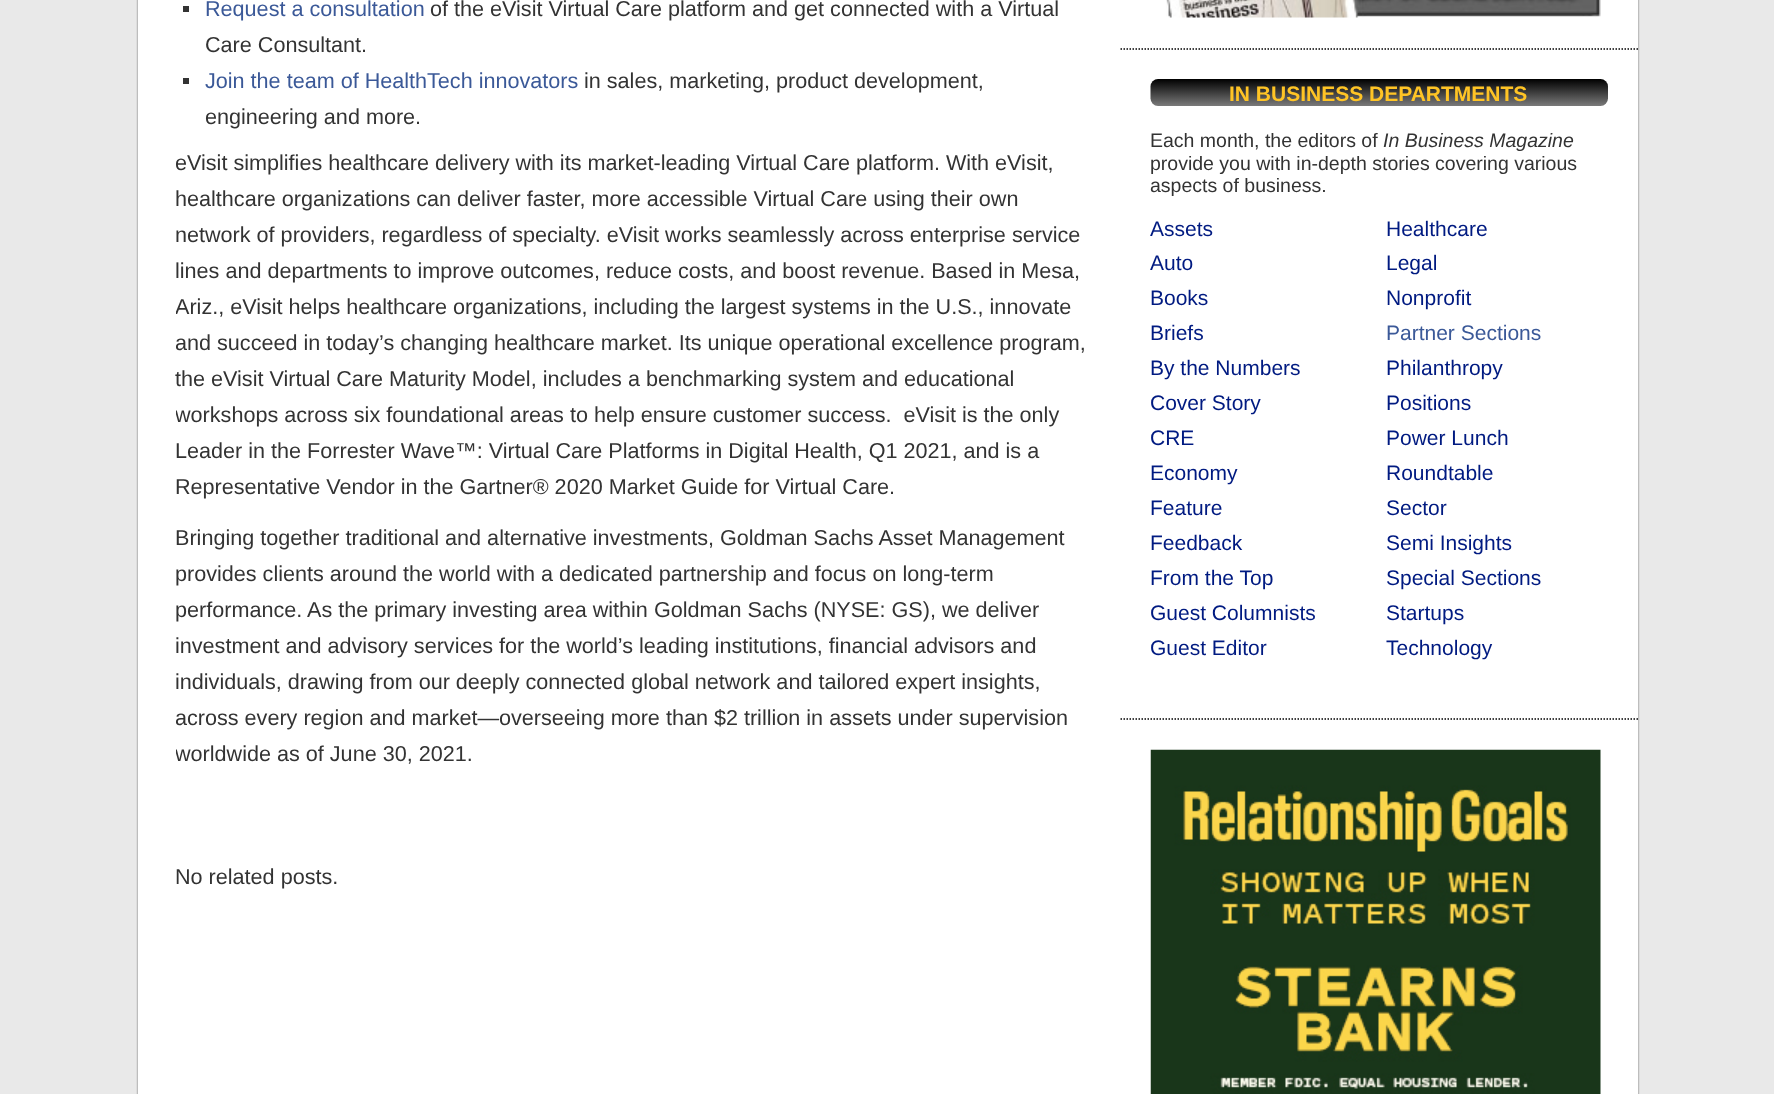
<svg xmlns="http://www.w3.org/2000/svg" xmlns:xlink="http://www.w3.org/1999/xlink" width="1774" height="1094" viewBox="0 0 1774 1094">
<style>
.cls-1{font:21.6px Liberation Sans;fill:#3b5998}
.cls-2{font:21.6px Liberation Sans;fill:#333333}
.cls-3{font:bold 21px Liberation Sans;fill:#ffc425}
.cls-4{font:19.5px Liberation Sans;fill:#333333}
.cls-5{font:italic 19.5px Liberation Sans;fill:#333333}
.cls-6{font:21px Liberation Sans;fill:#001a81}
.cls-7{font:21px Liberation Sans;fill:#3b5998}
</style>
<defs>
<clipPath id="clip1"><rect x="176" y="0" width="915" height="981"/></clipPath>
</defs>
<rect width="100%" height="100%" fill="#e9e9e9"/>
<rect fill="#666666" filter="blur(1px)" x="138" y="-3" width="1500" height="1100"/>
<rect fill="#ffffff" x="138" y="0" width="1500" height="1094"/>
<rect fill="#333333" x="183" y="6" width="6" height="6"/>
<rect fill="#333333" x="183" y="78" width="6" height="6"/>
<path fill="none" stroke="#000000" stroke-width="1.5" stroke-dasharray="1.5 1.5" d="M1120.5 49H1638"/>
<image xlink:href="image0.png" x="1166" y="0" width="435" height="18"/>
<path fill="none" stroke="#000000" stroke-width="1.5" stroke-dasharray="1.5 1.5" d="M1120.5 719H1638"/>
<image xlink:href="image1.png" x="1150" y="79" width="458" height="27"/>
<image xlink:href="image2.png" x="1150" y="749" width="451" height="345"/>
<text class="cls-1" x="205" y="16">Request a consultation</text>
<text class="cls-2" x="430" y="16">of the eVisit Virtual Care platform and get connected with a Virtual</text>
<text class="cls-2" x="205" y="52">Care Consultant.</text>
<text class="cls-1" x="205" y="88">Join the team of HealthTech innovators</text>
<text class="cls-2" x="584" y="88">in sales, marketing, product development,</text>
<text class="cls-2" x="205" y="124">engineering and more.</text>
<g clip-path="url(#clip1)">
<text class="cls-2" x="175" y="170">eVisit simplifies healthcare delivery with its market-leading Virtual Care platform. With eVisit,</text>
</g>
<text class="cls-2"><tspan x="175" y="206">healthcare organizations can deliver faster, more accessible Virtual Care using their own</tspan><tspan x="175" y="242">network of providers, regardless of specialty. eVisit works seamlessly across enterprise service</tspan><tspan x="175" y="278">lines and departments to improve outcomes, reduce costs, and boost revenue. Based in Mesa,</tspan></text>
<g clip-path="url(#clip1)">
<text class="cls-2"><tspan x="175" y="314">Ariz., eVisit helps healthcare organizations, including the largest systems in the U.S., innovate</tspan><tspan x="175" y="350">and succeed in today’s changing healthcare market. Its unique operational excellence program,</tspan></text>
</g>
<text class="cls-2" x="175" y="386">the eVisit Virtual Care Maturity Model, includes a benchmarking system and educational</text>
<g clip-path="url(#clip1)">
<text class="cls-2" xml:space="preserve" x="175" y="422">workshops across six foundational areas to help ensure customer success.  eVisit is the only</text>
</g>
<text class="cls-2"><tspan x="175" y="458">Leader in the Forrester Wave™: Virtual Care Platforms in Digital Health, Q1 2021, and is a</tspan><tspan x="175" y="494">Representative Vendor in the Gartner® 2020 Market Guide for Virtual Care.</tspan></text>
<text class="cls-2"><tspan x="175" y="545">Bringing together traditional and alternative investments, Goldman Sachs Asset Management</tspan><tspan x="175" y="581">provides clients around the world with a dedicated partnership and focus on long-term</tspan><tspan x="175" y="617">performance. As the primary investing area within Goldman Sachs (NYSE: GS), we deliver</tspan><tspan x="175" y="653">investment and advisory services for the world’s leading institutions, financial advisors and</tspan><tspan x="175" y="689">individuals, drawing from our deeply connected global network and tailored expert insights,</tspan></text>
<g clip-path="url(#clip1)">
<text class="cls-2"><tspan x="175" y="725">across every region and market—overseeing more than $2 trillion in assets under supervision</tspan><tspan x="175" y="761">worldwide as of June 30, 2021.</tspan></text>
</g>
<text class="cls-2" x="175" y="884">No related posts.</text>
<text class="cls-3" x="1229" y="101">IN BUSINESS DEPARTMENTS</text>
<text class="cls-4" x="1150" y="147">Each month, the editors of</text>
<text class="cls-5" x="1383" y="147">In Business Magazine</text>
<text class="cls-4"><tspan x="1150" y="170">provide you with in-depth stories covering various</tspan><tspan x="1150" y="192">aspects of business.</tspan></text>
<text class="cls-6"><tspan x="1150" y="236">Assets</tspan><tspan x="1150" y="270">Auto</tspan><tspan x="1150" y="305">Books</tspan><tspan x="1150" y="340">Briefs</tspan><tspan x="1150" y="375">By the Numbers</tspan><tspan x="1150" y="410">Cover Story</tspan><tspan x="1150" y="445">CRE</tspan><tspan x="1150" y="480">Economy</tspan><tspan x="1150" y="515">Feature</tspan><tspan x="1150" y="550">Feedback</tspan><tspan x="1150" y="585">From the Top</tspan><tspan x="1150" y="620">Guest Columnists</tspan><tspan x="1150" y="655">Guest Editor</tspan></text>
<text class="cls-6"><tspan x="1386" y="236">Healthcare</tspan><tspan x="1386" y="270">Legal</tspan><tspan x="1386" y="305">Nonprofit</tspan></text>
<text class="cls-7" x="1386" y="340">Partner Sections</text>
<text class="cls-6"><tspan x="1386" y="375">Philanthropy</tspan><tspan x="1386" y="410">Positions</tspan><tspan x="1386" y="445">Power Lunch</tspan><tspan x="1386" y="480">Roundtable</tspan><tspan x="1386" y="515">Sector</tspan><tspan x="1386" y="550">Semi Insights</tspan><tspan x="1386" y="585">Special Sections</tspan><tspan x="1386" y="620">Startups</tspan><tspan x="1386" y="655">Technology</tspan></text>
</svg>
